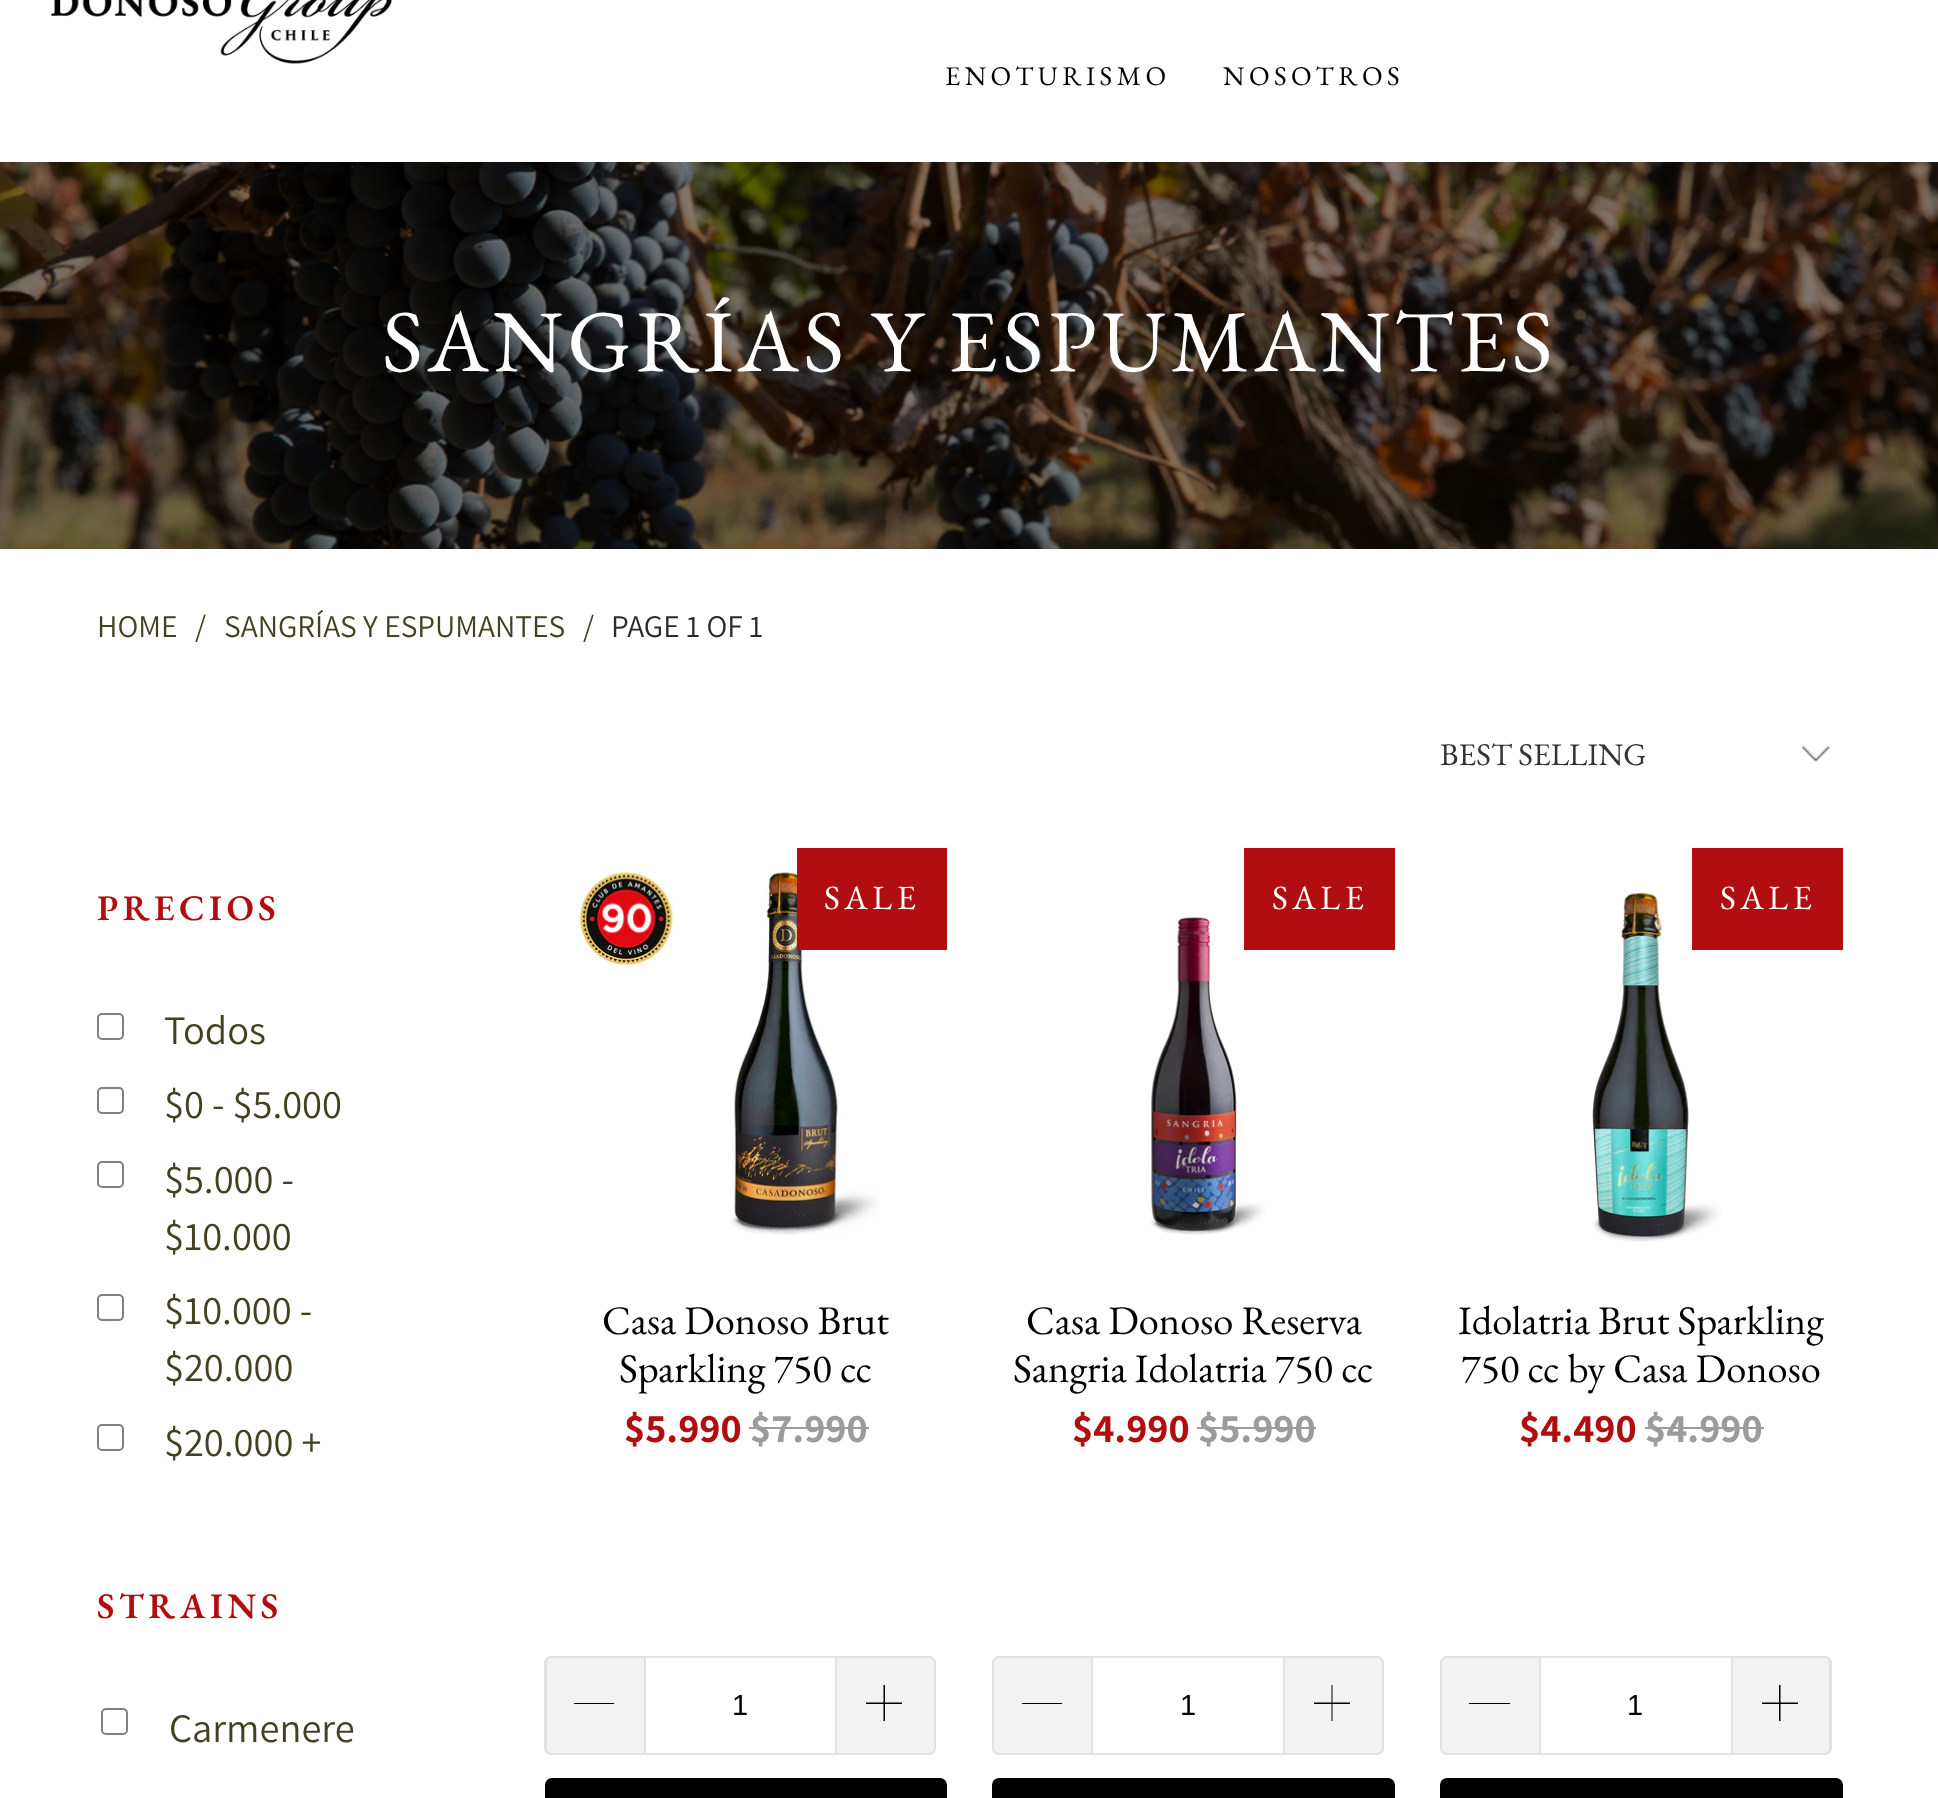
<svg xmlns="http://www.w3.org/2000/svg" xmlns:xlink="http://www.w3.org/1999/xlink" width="1938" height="1798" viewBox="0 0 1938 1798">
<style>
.cls-1{font:27px EB Garamond;letter-spacing:4.5px;fill:#000000}
.cls-2{font:88.1px EB Garamond;letter-spacing:4.5px;fill:#ffffff}
.cls-3{font:31.5px Assistant;fill:#444022}
.cls-4{font:31.5px Assistant;fill:#2b2a2a}
.cls-5{font:31.5px EB Garamond;fill:#333333}
.cls-6{font:600 36px EB Garamond;letter-spacing:4.5px;fill:#b20d11}
.cls-7{font:40.5px Assistant;fill:#444022}
.cls-8{font:34px EB Garamond;letter-spacing:4.5px;fill:#ffffff}
.cls-9{font:40.5px EB Garamond;fill:#000000}
.cls-10{font:bold 40.5px Assistant;fill:#b20d11}
.cls-11{font:bold 40.5px Assistant;fill:#9c9c9c}
.cls-12{font:29px Liberation Sans;fill:#000000}
</style>
<rect width="100%" height="100%" fill="#ffffff"/>
<image xlink:href="image0.png" x="51" y="0" width="341" height="64"/>
<image xlink:href="image1.png" x="0" y="162" width="1938" height="387"/>
<image xlink:href="image2.png" x="1802" y="745" width="28" height="17"/>
<rect fill="none" stroke="#808080" stroke-width="2" x="98" y="1014" width="25" height="25" rx="4"/>
<rect fill="none" stroke="#808080" stroke-width="2" x="98" y="1088" width="25" height="25" rx="4"/>
<rect fill="none" stroke="#808080" stroke-width="2" x="98" y="1162" width="25" height="25" rx="4"/>
<rect fill="none" stroke="#808080" stroke-width="2" x="98" y="1295" width="25" height="25" rx="4"/>
<rect fill="none" stroke="#808080" stroke-width="2" x="98" y="1425" width="25" height="25" rx="4"/>
<rect fill="none" stroke="#808080" stroke-width="2" x="102" y="1709" width="25" height="25" rx="4"/>
<image xlink:href="image3.png" x="577" y="871" width="303" height="364"/>
<rect fill="#b20d11" x="797" y="848" width="150" height="102"/>
<rect fill="#9c9c9c" x="749" y="1427" width="120" height="2"/>
<path fill="#f2f2f2" d="M552 1656H644V1755H552C548 1755 545 1752 545 1748V1663C545 1659 548 1656 552 1656Z"/>
<path fill="#e2e2e2" fill-rule="evenodd" d="M551 1656H644V1755H551C548 1755 544 1752 544 1748V1663C544 1659 548 1656 551 1656ZM551 1658H644V1753H551C549 1753 547 1751 547 1748V1663C547 1660 549 1658 551 1658Z"/>
<rect fill="#000000" x="574" y="1703" width="40" height="1"/>
<rect fill="none" stroke="#e2e2e2" stroke-width="2" x="645" y="1657" width="191" height="97"/>
<path fill="#f2f2f2" d="M837 1656H929C933 1656 936 1659 936 1663V1748C936 1752 933 1755 929 1755H837Z"/>
<path fill="#e2e2e2" fill-rule="evenodd" d="M837 1656H929C933 1656 936 1659 936 1663V1748C936 1752 933 1755 929 1755H837ZM837 1658H929C932 1658 934 1660 934 1663V1748C934 1751 932 1753 929 1753H837Z"/>
<path fill="#000000" d="M902 1702.5H885V1685H883.5V1702.5H866V1704H883.5V1721H885V1704H902Z"/>
<rect fill="#000000" stroke="#000000" stroke-width="2" x="546" y="1779" width="400" height="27" rx="6"/>
<image xlink:href="image4.png" x="1150" y="916" width="115" height="319"/>
<rect fill="#b20d11" x="1244" y="848" width="151" height="102"/>
<rect fill="#9c9c9c" x="1197" y="1427" width="119" height="2"/>
<path fill="#f2f2f2" d="M999 1656H1091V1755H999C995 1755 992 1752 992 1748V1663C992 1659 995 1656 999 1656Z"/>
<path fill="#e2e2e2" fill-rule="evenodd" d="M999 1656H1091V1755H999C995 1755 992 1752 992 1748V1663C992 1659 995 1656 999 1656ZM999 1658H1091V1753H999C997 1753 994 1751 994 1748V1663C994 1660 997 1658 999 1658Z"/>
<rect fill="#000000" x="1022" y="1703" width="40" height="1"/>
<rect fill="none" stroke="#e2e2e2" stroke-width="2" x="1092" y="1657" width="192" height="97"/>
<path fill="#f2f2f2" d="M1285 1656H1377C1381 1656 1384 1659 1384 1663V1748C1384 1752 1381 1755 1377 1755H1285Z"/>
<path fill="#e2e2e2" fill-rule="evenodd" d="M1285 1656H1377C1381 1656 1384 1659 1384 1663V1748C1384 1752 1381 1755 1377 1755H1285ZM1285 1658H1377C1379 1658 1382 1660 1382 1663V1748C1382 1751 1379 1753 1377 1753H1285Z"/>
<path fill="#000000" d="M1350 1702.5H1332.5V1685H1331.5V1702.5H1314V1704H1331.5V1721H1332.5V1704H1350Z"/>
<rect fill="#000000" stroke="#000000" stroke-width="2" x="993" y="1779" width="401" height="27" rx="6"/>
<image xlink:href="image5.png" x="1592" y="892" width="129" height="350"/>
<rect fill="#b20d11" x="1692" y="848" width="151" height="102"/>
<rect fill="#9c9c9c" x="1645" y="1427" width="119" height="2"/>
<path fill="#f2f2f2" d="M1447 1656H1539V1755H1447C1443 1755 1440 1752 1440 1748V1663C1440 1659 1443 1656 1447 1656Z"/>
<path fill="#e2e2e2" fill-rule="evenodd" d="M1447 1656H1539V1755H1447C1443 1755 1440 1752 1440 1748V1663C1440 1659 1443 1656 1447 1656ZM1447 1658H1539V1753H1447C1444 1753 1442 1751 1442 1748V1663C1442 1660 1444 1658 1447 1658Z"/>
<rect fill="#000000" x="1469" y="1703" width="41" height="1"/>
<rect fill="none" stroke="#e2e2e2" stroke-width="2" x="1540" y="1657" width="192" height="97"/>
<path fill="#f2f2f2" d="M1733 1656H1825C1829 1656 1832 1659 1832 1663V1748C1832 1752 1829 1755 1825 1755H1733Z"/>
<path fill="#e2e2e2" fill-rule="evenodd" d="M1732 1656H1825C1828 1656 1832 1659 1832 1663V1748C1832 1752 1828 1755 1825 1755H1732ZM1732 1658H1825C1827 1658 1829 1660 1829 1663V1748C1829 1751 1827 1753 1825 1753H1732Z"/>
<path fill="#000000" d="M1798 1702.5H1780.5V1685H1779V1702.5H1762V1704H1779V1721H1780.5V1704H1798Z"/>
<rect fill="#000000" stroke="#000000" stroke-width="2" x="1441" y="1779" width="401" height="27" rx="6"/>
<text class="cls-1" x="945" y="85">ENOTURISMO</text>
<text class="cls-1" x="1223" y="85">NOSOTROS</text>
<text class="cls-2" x="382" y="371">SANGRÍAS Y ESPUMANTES</text>
<text class="cls-3" x="97" y="637">HOME</text>
<text class="cls-3" x="195" y="637">/</text>
<text class="cls-3" x="224" y="637">SANGRÍAS Y ESPUMANTES</text>
<text class="cls-3" x="583" y="637">/</text>
<text class="cls-4" x="611" y="637">PAGE 1 OF 1</text>
<text class="cls-5" x="1440" y="765">BEST SELLING</text>
<text class="cls-6" x="97" y="920">PRECIOS</text>
<text class="cls-7"><tspan x="164" y="1044">Todos</tspan><tspan x="164" y="1118">$0 - $5.000</tspan><tspan x="164" y="1193">$5.000 -</tspan><tspan x="164" y="1250">$10.000</tspan><tspan x="164" y="1324">$10.000 -</tspan><tspan x="164" y="1381">$20.000</tspan><tspan x="164" y="1456">$20.000 +</tspan></text>
<text class="cls-6" x="97" y="1618">STRAINS</text>
<text class="cls-7" x="169" y="1742">Carmenere</text>
<text class="cls-8" x="824" y="909">SALE</text>
<text class="cls-9" x="602" y="1334">Casa Donoso Brut</text>
<text class="cls-9" x="619" y="1382">Sparkling 750 cc</text>
<text class="cls-10" x="624" y="1442">$5.990</text>
<text class="cls-11" x="750" y="1442">$7.990</text>
<text class="cls-12" x="732" y="1715">1</text>
<text class="cls-8" x="1272" y="909">SALE</text>
<text class="cls-9" x="1026" y="1334">Casa Donoso Reserva</text>
<text class="cls-9" x="1013" y="1382">Sangria Idolatria 750 cc</text>
<text class="cls-10" x="1072" y="1442">$4.990</text>
<text class="cls-11" x="1198" y="1442">$5.990</text>
<text class="cls-12" x="1180" y="1715">1</text>
<text class="cls-8" x="1720" y="909">SALE</text>
<text class="cls-9" x="1458" y="1334">Idolatria Brut Sparkling</text>
<text class="cls-9" x="1461" y="1382">750 cc by Casa Donoso</text>
<text class="cls-10" x="1519" y="1442">$4.490</text>
<text class="cls-11" x="1645" y="1442">$4.990</text>
<text class="cls-12" x="1627" y="1715">1</text>
</svg>
